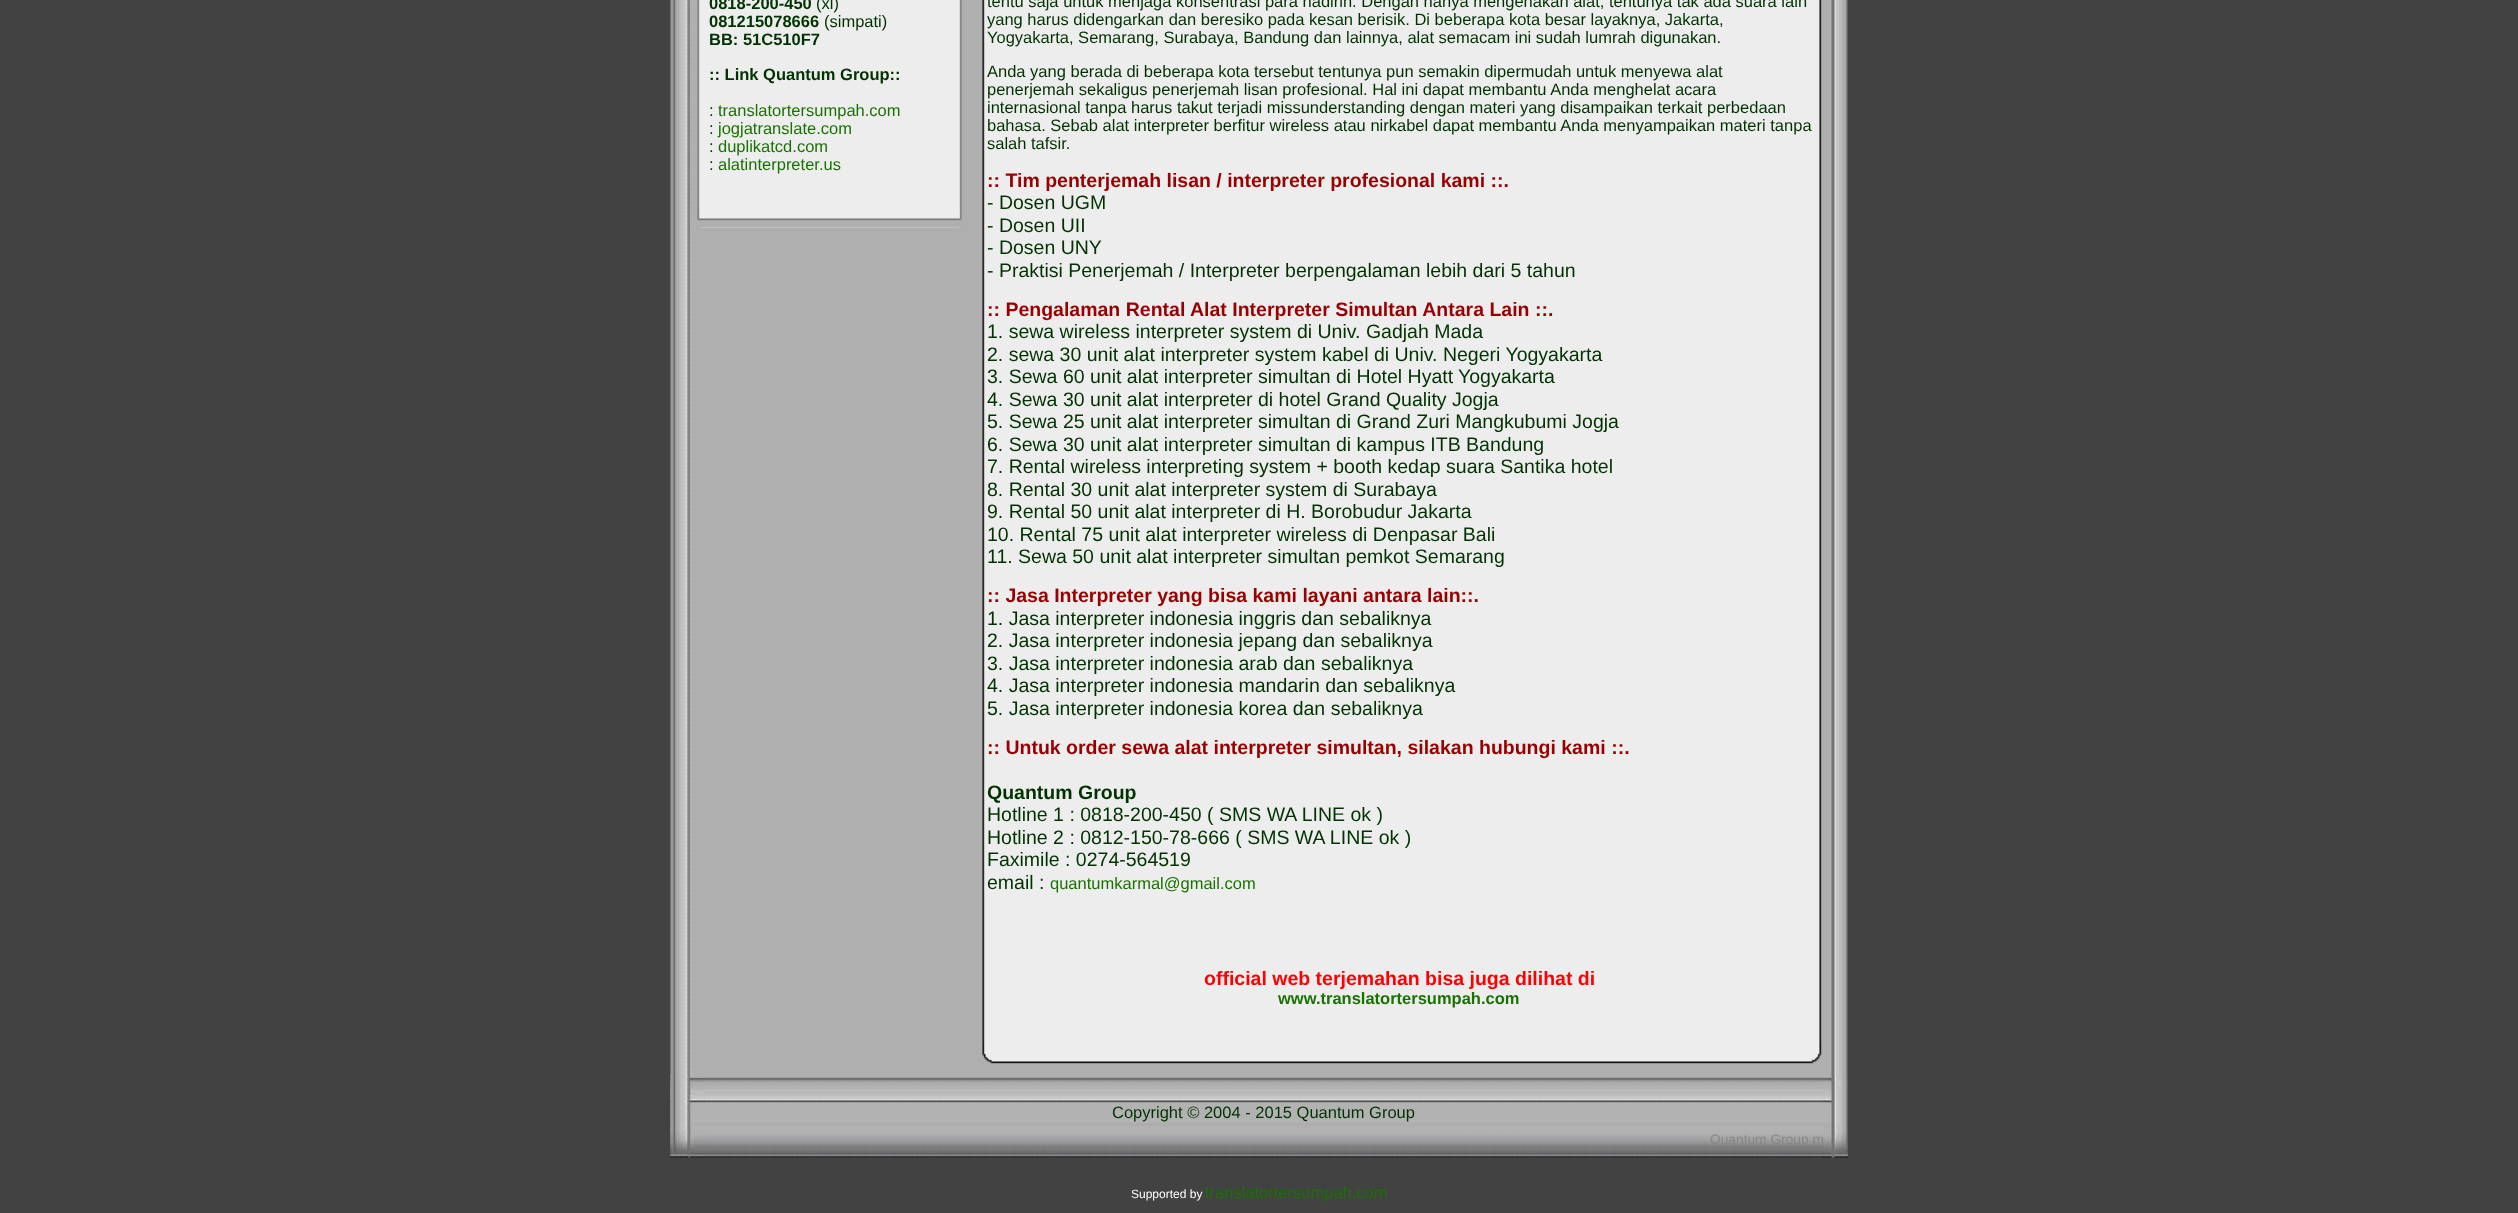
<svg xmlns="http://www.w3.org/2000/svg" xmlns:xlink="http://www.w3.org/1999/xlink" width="2518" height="1213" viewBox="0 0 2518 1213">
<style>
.cls-1{font:bold 16.5px Liberation Sans;fill:#003300}
.cls-2{font:16.5px Liberation Sans;fill:#003300}
.cls-3{font:16.5px Liberation Sans;fill:#197201}
.cls-4{font:bold 19.5px Liberation Sans;fill:#990000}
.cls-5{font:19.5px Liberation Sans;fill:#003300}
.cls-6{font:bold 19.5px Liberation Sans;fill:#003300}
.cls-7{font:bold 19.5px Liberation Sans;fill:#ff0000}
.cls-8{font:bold 16.5px Liberation Sans;fill:#197201}
.cls-9{font:13.75px Liberation Sans;fill:#878787}
.cls-10{font:12px Liberation Sans;fill:#ffffff}
</style>
<rect width="100%" height="100%" fill="#424242"/>
<image xlink:href="image0.png" x="670" y="0" width="1178" height="1075"/>
<image xlink:href="image1.png" x="691" y="0" width="271" height="228"/>
<image xlink:href="image2.png" x="697" y="207" width="265" height="21"/>
<rect fill="#ededed" x="985" y="0" width="834" height="1042"/>
<image xlink:href="image3.png" x="980" y="0" width="5" height="1042"/>
<image xlink:href="image4.png" x="1819" y="0" width="8" height="1042"/>
<image xlink:href="image5.png" x="980" y="1042" width="847" height="33"/>
<image xlink:href="image6.png" x="670" y="1075" width="1178" height="83"/>
<image xlink:href="image7.png" x="670" y="1075" width="35" height="83"/>
<image xlink:href="image8.png" x="1822" y="1075" width="26" height="83"/>
<text class="cls-1" x="709" y="9">0818-200-450</text>
<text class="cls-2" x="816" y="9">(xl)</text>
<text class="cls-1" x="709" y="27">081215078666</text>
<text class="cls-2" x="824" y="27">(simpati)</text>
<text class="cls-1" x="709" y="45">BB: 51C510F7</text>
<text class="cls-1" x="709" y="80">:: Link Quantum Group::</text>
<text class="cls-2" x="709" y="116">:</text>
<text class="cls-3" x="718" y="116">translatortersumpah.com</text>
<text class="cls-2" x="709" y="134">:</text>
<text class="cls-3" x="718" y="134">jogjatranslate.com</text>
<text class="cls-2" x="709" y="152">:</text>
<text class="cls-3" x="718" y="152">duplikatcd.com</text>
<text class="cls-2" x="709" y="170">:</text>
<text class="cls-3" x="718" y="170">alatinterpreter.us</text>
<text class="cls-2"><tspan x="987" y="7">tentu saja untuk menjaga konsentrasi para hadirin. Dengan hanya mengenakan alat, tentunya tak ada suara lain</tspan><tspan x="987" y="25">yang harus didengarkan dan beresiko pada kesan berisik. Di beberapa kota besar layaknya, Jakarta,</tspan><tspan x="987" y="43">Yogyakarta, Semarang, Surabaya, Bandung dan lainnya, alat semacam ini sudah lumrah digunakan.</tspan></text>
<text class="cls-2"><tspan x="987" y="77">Anda yang berada di beberapa kota tersebut tentunya pun semakin dipermudah untuk menyewa alat</tspan><tspan x="987" y="95">penerjemah sekaligus penerjemah lisan profesional. Hal ini dapat membantu Anda menghelat acara</tspan><tspan x="987" y="113">internasional tanpa harus takut terjadi missunderstanding dengan materi yang disampaikan terkait perbedaan</tspan><tspan x="987" y="131">bahasa. Sebab alat interpreter berfitur wireless atau nirkabel dapat membantu Anda menyampaikan materi tanpa</tspan><tspan x="987" y="149">salah tafsir.</tspan></text>
<text class="cls-4" x="987" y="187">:: Tim penterjemah lisan / interpreter profesional kami ::.</text>
<text class="cls-5"><tspan x="987" y="209">- Dosen UGM</tspan><tspan x="987" y="232">- Dosen UII</tspan><tspan x="987" y="254">- Dosen UNY</tspan><tspan x="987" y="277">- Praktisi Penerjemah / Interpreter berpengalaman lebih dari 5 tahun</tspan></text>
<text class="cls-4" x="987" y="316">:: Pengalaman Rental Alat Interpreter Simultan Antara Lain ::.</text>
<text class="cls-5"><tspan x="987" y="338">1. sewa wireless interpreter system di Univ. Gadjah Mada</tspan><tspan x="987" y="361">2. sewa 30 unit alat interpreter system kabel di Univ. Negeri Yogyakarta</tspan><tspan x="987" y="383">3. Sewa 60 unit alat interpreter simultan di Hotel Hyatt</tspan></text>
<text class="cls-5" x="1458" y="383">Yogyakarta</text>
<text class="cls-5"><tspan x="987" y="406">4. Sewa 30 unit alat interpreter di hotel Grand Quality Jogja</tspan><tspan x="987" y="428">5. Sewa 25 unit alat interpreter simultan di Grand Zuri Mangkubumi Jogja</tspan><tspan x="987" y="451">6. Sewa 30 unit alat interpreter simultan di kampus ITB Bandung</tspan><tspan x="987" y="473">7. Rental wireless interpreting system + booth kedap suara Santika hotel</tspan><tspan x="987" y="496">8. Rental 30 unit alat interpreter system di Surabaya</tspan><tspan x="987" y="518">9. Rental 50 unit alat interpreter di H. Borobudur Jakarta</tspan><tspan x="987" y="541">10. Rental 75 unit alat interpreter wireless di Denpasar Bali</tspan><tspan x="987" y="563">11. Sewa 50 unit alat interpreter simultan pemkot Semarang</tspan></text>
<text class="cls-4" x="987" y="602">:: Jasa Interpreter yang bisa kami layani antara lain::.</text>
<text class="cls-5"><tspan x="987" y="625">1. Jasa interpreter indonesia inggris dan sebaliknya</tspan><tspan x="987" y="647">2. Jasa interpreter indonesia jepang dan sebaliknya</tspan><tspan x="987" y="670">3. Jasa interpreter indonesia arab dan sebaliknya</tspan><tspan x="987" y="692">4. Jasa interpreter indonesia mandarin dan sebaliknya</tspan><tspan x="987" y="715">5. Jasa interpreter indonesia korea dan sebaliknya</tspan></text>
<text class="cls-4" x="987" y="754">:: Untuk order sewa alat interpreter simultan, silakan hubungi kami ::.</text>
<text class="cls-6" x="987" y="799">Quantum Group</text>
<text class="cls-5"><tspan x="987" y="821">Hotline 1 : 0818-200-450 ( SMS WA LINE ok )</tspan><tspan x="987" y="844">Hotline 2 : 0812-150-78-666 ( SMS WA LINE ok )</tspan><tspan x="987" y="866">Faximile : 0274-564519</tspan><tspan x="987" y="889">email :</tspan></text>
<text class="cls-3" x="1050" y="889">quantumkarmal@gmail.com</text>
<text class="cls-7" x="1204" y="985">official web terjemahan bisa juga dilihat di</text>
<text class="cls-8" x="1278" y="1004">www.translatortersumpah.com</text>
<text class="cls-2" x="1112" y="1118">Copyright © 2004 - 2015 Quantum Group</text>
<text class="cls-9" x="1710" y="1144">Quantum Group m</text>
<text class="cls-10" x="1131" y="1198">Supported by</text>
<text class="cls-3" x="1205" y="1198">translatortersumpah.com</text>
</svg>
